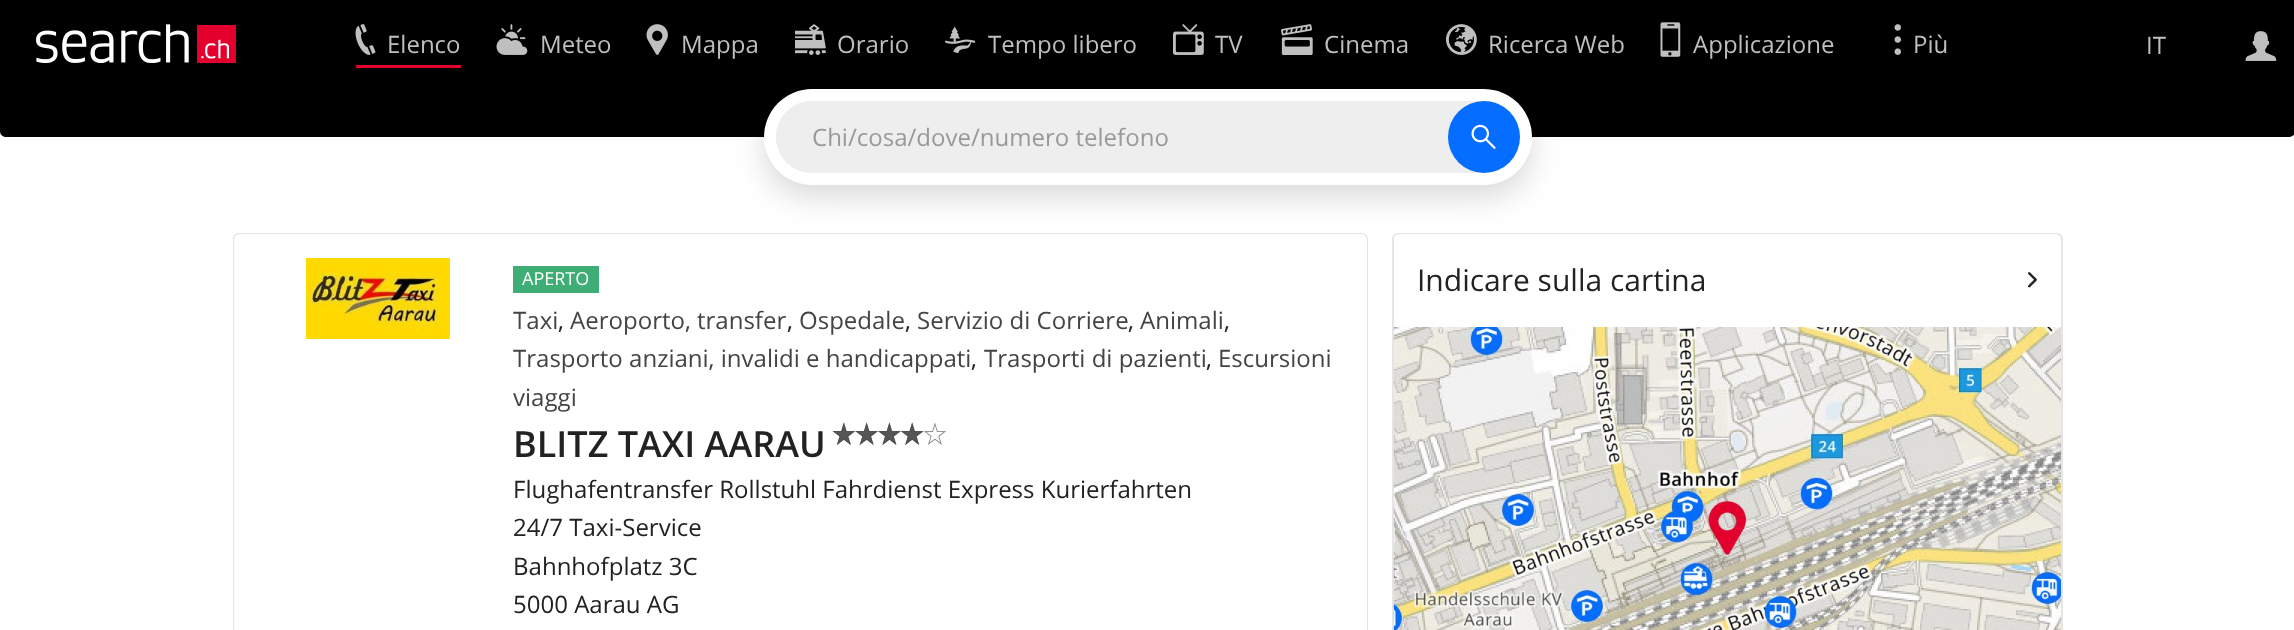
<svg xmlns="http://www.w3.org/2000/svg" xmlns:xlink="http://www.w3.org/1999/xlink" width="2294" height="630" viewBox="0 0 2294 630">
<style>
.cls-1{font:24px Open Sans;fill:#bfbfbf}
.cls-2{font:24px Open Sans;fill:#999999}
.cls-3{font:18px Open Sans;fill:#ffffff}
.cls-4{font:24px Open Sans;fill:#444444}
.cls-5{font:24px Open Sans;fill:#222222}
.cls-6{font:600 36px Open Sans;fill:#222222}
.cls-7{font:30px Open Sans;fill:#222222}
</style>
<defs>
<clipPath id="clip1"><rect x="234" y="234" width="1133" height="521" rx="5"/></clipPath>
<clipPath id="clip2"><rect x="1394" y="234" width="667" height="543" rx="5"/></clipPath>
</defs>
<rect width="100%" height="100%" fill="#ffffff"/>
<rect fill="#000000" x="0" y="0" width="2294" height="89"/>
<image xlink:href="image0.png" x="36" y="24" width="200" height="39"/>
<rect fill="#e4002c" x="356" y="65" width="105" height="3"/>
<image xlink:href="image1.png" x="355" y="24" width="21" height="31"/>
<image xlink:href="image2.png" x="496" y="24" width="32" height="31"/>
<image xlink:href="image3.png" x="646" y="24" width="22" height="31"/>
<image xlink:href="image4.png" x="795" y="24" width="31" height="31"/>
<image xlink:href="image5.png" x="945" y="26" width="31" height="28"/>
<image xlink:href="image6.png" x="1173" y="24" width="31" height="31"/>
<image xlink:href="image7.png" x="1281" y="24" width="32" height="31"/>
<image xlink:href="image8.png" x="1446" y="24" width="31" height="31"/>
<image xlink:href="image9.png" x="1660" y="22" width="21" height="35"/>
<image xlink:href="image10.png" x="1894" y="24" width="7" height="31"/>
<image xlink:href="image11.png" x="2245" y="31" width="32" height="30"/>
<path fill="#000000" d="M0 89H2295V131C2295 134.5 2292.5 137 2289 137H6C2.5 137 0 134.5 0 131Z"/>
<rect fill="none" stroke="#e5e5e5" stroke-width="2" x="234" y="234" width="1133" height="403" rx="5"/>
<g clip-path="url(#clip1)">
<rect fill="#ffffff" x="234" y="234" width="1133" height="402" rx="6"/>
</g>
<rect fill="none" stroke="#e5e5e5" stroke-width="2" x="1393" y="234" width="669" height="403" rx="5"/>
<g clip-path="url(#clip2)">
<rect fill="#ffffff" x="1394" y="234" width="667" height="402" rx="6"/>
</g>
<rect fill="#000000" fill-opacity="0.15" filter="blur(15px)" x="764" y="101" width="768" height="96" rx="48"/>
<rect fill="#ffffff" x="764" y="89" width="768" height="96" rx="48"/>
<rect fill="#eeeeee" x="776" y="101" width="744" height="72" rx="36"/>
<rect fill="#eeeeee" x="776" y="101" width="672" height="72" rx="36"/>
<circle fill="#056dff" cx="1484" cy="137" r="36"/>
<image xlink:href="image12.png" x="1471" y="124" width="25" height="25"/>
<image xlink:href="image13.png" x="306" y="258" width="144" height="81"/>
<rect fill="#3ead76" x="513" y="266" width="86" height="27"/>
<image xlink:href="image14.png" x="832" y="422" width="115" height="23"/>
<image xlink:href="image15.png" x="833" y="422" width="90" height="23"/>
<image xlink:href="image16.png" x="2028" y="272" width="9" height="16"/>
<image xlink:href="image17.png" x="1393" y="327" width="668" height="303"/>
<text class="cls-1" x="387" y="53">Elenco</text>
<text class="cls-1" x="540" y="53">Meteo</text>
<text class="cls-1" x="681" y="53">Mappa</text>
<text class="cls-1" x="837" y="53">Orario</text>
<text class="cls-1" x="988" y="53">Tempo libero</text>
<text class="cls-1" x="1215" y="53">TV</text>
<text class="cls-1" x="1324" y="53">Cinema</text>
<text class="cls-1" x="1488" y="53">Ricerca Web</text>
<text class="cls-1" x="1693" y="53">Applicazione</text>
<text class="cls-1" x="1913" y="53">Più</text>
<text class="cls-1" x="2146" y="54">IT</text>
<text class="cls-2" x="812" y="146">Chi/cosa/dove/numero telefono</text>
<text class="cls-3" x="522" y="285">APERTO</text>
<text class="cls-4" x="513" y="329">Taxi</text>
<text class="cls-5" x="558" y="329">,</text>
<text class="cls-4" x="570" y="329">Aeroporto, transfer</text>
<text class="cls-5" x="787" y="329">,</text>
<text class="cls-4" x="799" y="329">Ospedale</text>
<text class="cls-5" x="905" y="329">,</text>
<text class="cls-4" x="917" y="329">Servizio di Corriere</text>
<text class="cls-5" x="1128" y="329">,</text>
<text class="cls-4" x="1140" y="329">Animali</text>
<text class="cls-5" x="1224" y="329">,</text>
<text class="cls-4" x="513" y="367">Trasporto anziani, invalidi e handicappati</text>
<text class="cls-5" x="971" y="367">,</text>
<text class="cls-4" x="984" y="367">Trasporti di pazienti</text>
<text class="cls-5" x="1206" y="367">,</text>
<text class="cls-4" x="1218" y="367">Escursioni</text>
<text class="cls-4" x="513" y="406">viaggi</text>
<text class="cls-6" x="513" y="457">BLITZ TAXI AARAU</text>
<text class="cls-5"><tspan x="513" y="498">Flughafentransfer Rollstuhl Fahrdienst Express Kurierfahrten</tspan><tspan x="513" y="536">24/7 Taxi-Service</tspan><tspan x="513" y="575">Bahnhofplatz 3C</tspan><tspan x="513" y="613">5000 Aarau AG</tspan></text>
<text class="cls-7" x="1417" y="291">Indicare sulla cartina</text>
</svg>
